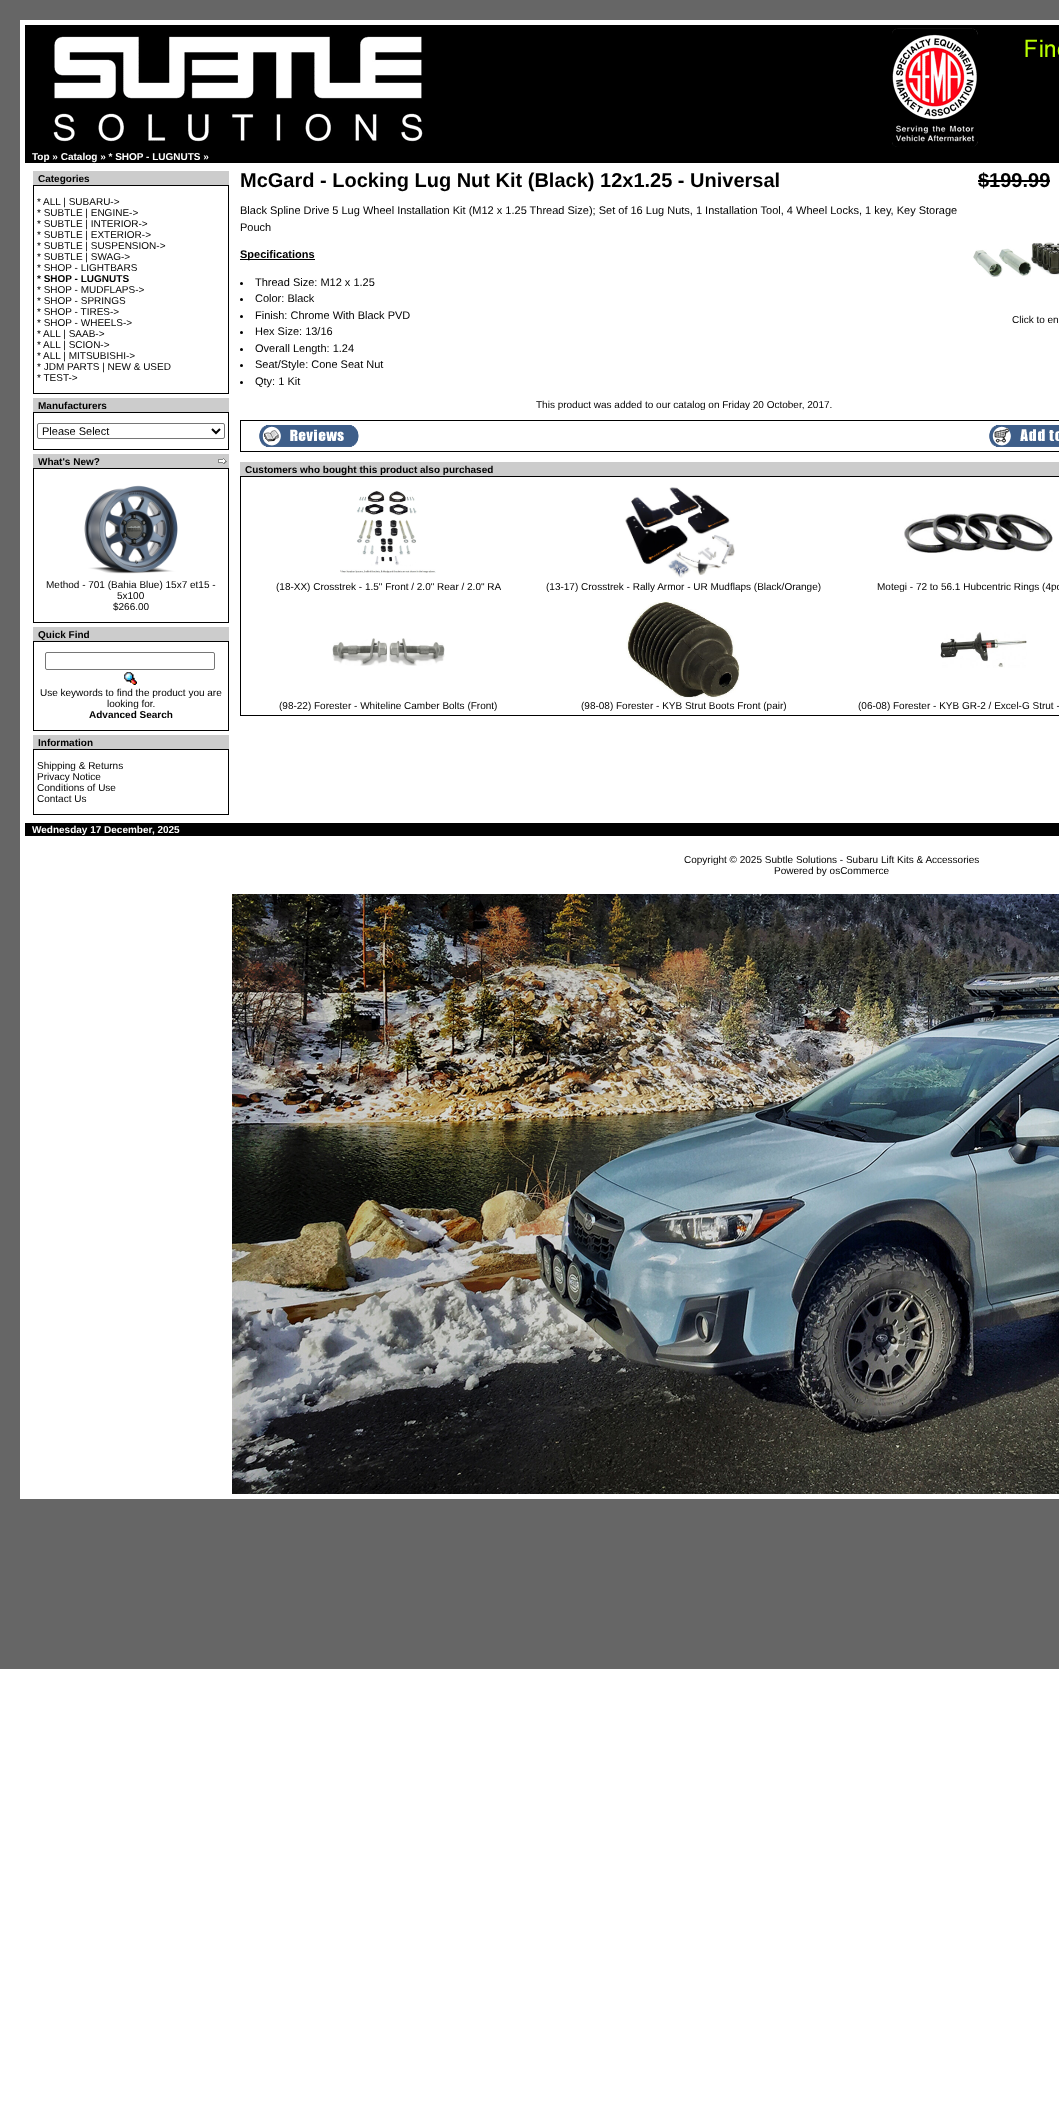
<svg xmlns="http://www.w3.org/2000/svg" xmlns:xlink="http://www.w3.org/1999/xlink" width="1059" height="2110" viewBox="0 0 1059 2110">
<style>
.cls-1{font:bold 10px Liberation Sans;fill:#ffffff}
.cls-2{font:bold 10px Liberation Sans;fill:#000000}
.cls-3{font:10px Liberation Sans;fill:#000000}
.cls-4{font:11px Liberation Sans;fill:#000000}
.cls-5{font:bold 20px Liberation Sans;fill:#000000}
.cls-6{font:bold 11px Liberation Sans;fill:#000000}
</style>
<rect width="100%" height="100%" fill="#ffffff"/>
<rect fill="#666666" x="0" y="0" width="1059" height="1669"/>
<rect fill="#ffffff" x="20" y="20" width="1039" height="1479"/>
<rect fill="#000000" x="25" y="25" width="1034" height="125"/>
<image xlink:href="image0.png" x="53" y="28" width="1006" height="119"/>
<rect fill="#000000" x="25" y="150" width="1034" height="13"/>
<rect fill="#cccccc" x="33" y="171" width="196" height="14"/>
<rect fill="#000000" x="33" y="185" width="196" height="209"/>
<rect fill="#ffffff" x="34" y="186" width="194" height="207"/>
<rect fill="#cccccc" x="33" y="398" width="196" height="14"/>
<rect fill="#000000" x="33" y="412" width="196" height="38"/>
<rect fill="#ffffff" x="34" y="413" width="194" height="36"/>
<rect fill="none" stroke="#767676" x="37.5" y="423.5" width="187" height="15" rx="1.5"/>
<path fill="none" stroke="#000000" stroke-width="2" d="M212 429L216 433L220 429"/>
<rect fill="#cccccc" x="33" y="454" width="196" height="14"/>
<image xlink:href="image1.png" x="218" y="458" width="9" height="6"/>
<rect fill="#000000" x="33" y="468" width="196" height="155"/>
<rect fill="#ffffff" x="34" y="469" width="194" height="153"/>
<image xlink:href="image2.png" x="84" y="485" width="94" height="89"/>
<rect fill="#cccccc" x="33" y="627" width="196" height="14"/>
<rect fill="#000000" x="33" y="641" width="196" height="90"/>
<rect fill="#ffffff" x="34" y="642" width="194" height="88"/>
<rect fill="none" stroke="#767676" x="45.5" y="652.5" width="169" height="17" rx="1.5"/>
<image xlink:href="image3.png" x="124" y="672" width="13" height="13"/>
<rect fill="#cccccc" x="33" y="735" width="196" height="14"/>
<rect fill="#000000" x="33" y="749" width="196" height="66"/>
<rect fill="#ffffff" x="34" y="750" width="194" height="64"/>
<rect fill="#000000" x="978" y="180" width="72" height="2"/>
<rect fill="#000000" x="240" y="259" width="75" height="1"/>
<circle fill="#000000" cx="241.5" cy="283.5" r="1.5"/>
<circle fill="#000000" cx="241.5" cy="299.5" r="1.5"/>
<circle fill="#000000" cx="241.5" cy="316.5" r="1.5"/>
<image xlink:href="image4.png" x="973" y="242" width="86" height="35"/>
<circle fill="#000000" cx="241.5" cy="332.5" r="1.5"/>
<circle fill="#000000" cx="241.5" cy="349.5" r="1.5"/>
<circle fill="#000000" cx="241.5" cy="365.5" r="1.5"/>
<circle fill="#000000" cx="241.5" cy="382.5" r="1.5"/>
<rect fill="#000000" x="240" y="420" width="819" height="32"/>
<rect fill="#ffffff" x="241" y="421" width="818" height="30"/>
<image xlink:href="image5.png" x="259" y="425" width="100" height="22"/>
<image xlink:href="image6.png" x="989" y="425" width="70" height="22"/>
<rect fill="#cccccc" x="240" y="462" width="819" height="14"/>
<rect fill="#000000" x="240" y="476" width="819" height="240"/>
<rect fill="#ffffff" x="241" y="477" width="818" height="238"/>
<image xlink:href="image7.png" x="340" y="490" width="96" height="83"/>
<image xlink:href="image8.png" x="625" y="487" width="110" height="91"/>
<image xlink:href="image9.png" x="904" y="513" width="149" height="40"/>
<image xlink:href="image10.png" x="332" y="638" width="113" height="28"/>
<image xlink:href="image11.png" x="626" y="600" width="114" height="98"/>
<image xlink:href="image12.png" x="940" y="632" width="87" height="36"/>
<rect fill="#000000" x="25" y="823" width="1034" height="13"/>
<image xlink:href="image13.png" x="232" y="894" width="827" height="600"/>
<text class="cls-1" x="32" y="160">Top » Catalog » * SHOP - LUGNUTS »</text>
<text class="cls-2" x="38" y="182">Categories</text>
<text class="cls-3"><tspan x="37" y="205">* ALL | SUBARU-&gt;</tspan><tspan x="37" y="216">* SUBTLE | ENGINE-&gt;</tspan><tspan x="37" y="227">* SUBTLE | INTERIOR-&gt;</tspan><tspan x="37" y="238">* SUBTLE | EXTERIOR-&gt;</tspan><tspan x="37" y="249">* SUBTLE | SUSPENSION-&gt;</tspan><tspan x="37" y="260">* SUBTLE | SWAG-&gt;</tspan><tspan x="37" y="271">* SHOP - LIGHTBARS</tspan></text>
<text class="cls-2" x="37" y="282">* SHOP - LUGNUTS</text>
<text class="cls-3"><tspan x="37" y="293">* SHOP - MUDFLAPS-&gt;</tspan><tspan x="37" y="304">* SHOP - SPRINGS</tspan><tspan x="37" y="315">* SHOP - TIRES-&gt;</tspan><tspan x="37" y="326">* SHOP - WHEELS-&gt;</tspan><tspan x="37" y="337">* ALL | SAAB-&gt;</tspan><tspan x="37" y="348">* ALL | SCION-&gt;</tspan><tspan x="37" y="359">* ALL | MITSUBISHI-&gt;</tspan><tspan x="37" y="370">* JDM PARTS | NEW &amp; USED</tspan><tspan x="37" y="381">* TEST-&gt;</tspan></text>
<text class="cls-2" x="38" y="409">Manufacturers</text>
<text class="cls-4" x="42" y="435">Please Select</text>
<text class="cls-2" x="38" y="465">What's New?</text>
<text class="cls-3" x="46" y="588">Method - 701 (Bahia Blue) 15x7 et15 -</text>
<text class="cls-3" x="117" y="599">5x100</text>
<text class="cls-3" x="113" y="610">$266.00</text>
<text class="cls-2" x="38" y="638">Quick Find</text>
<text class="cls-3" x="40" y="696">Use keywords to find the product you are</text>
<text class="cls-3" x="107" y="707">looking for.</text>
<text class="cls-2" x="89" y="718">Advanced Search</text>
<text class="cls-2" x="38" y="746">Information</text>
<text class="cls-3"><tspan x="37" y="769">Shipping &amp; Returns</tspan><tspan x="37" y="780">Privacy Notice</tspan><tspan x="37" y="791">Conditions of Use</tspan><tspan x="37" y="802">Contact Us</tspan></text>
<text class="cls-5" x="240" y="187">McGard - Locking Lug Nut Kit (Black) 12x1.25 - Universal</text>
<text class="cls-5" x="978" y="187">$199.99</text>
<text class="cls-4"><tspan x="240" y="214">Black Spline Drive 5 Lug Wheel Installation Kit (M12 x 1.25 Thread Size); Set of 16 Lug Nuts, 1 Installation Tool, 4 Wheel Locks, 1 key, Key Storage</tspan><tspan x="240" y="231">Pouch</tspan></text>
<text class="cls-6" x="240" y="258">Specifications</text>
<text class="cls-4"><tspan x="255" y="286">Thread Size: M12 x 1.25</tspan><tspan x="255" y="302">Color: Black</tspan><tspan x="255" y="319">Finish: Chrome With Black PVD</tspan></text>
<text class="cls-3" x="1012" y="323">Click to en</text>
<text class="cls-4"><tspan x="255" y="335">Hex Size: 13/16</tspan><tspan x="255" y="352">Overall Length: 1.24</tspan><tspan x="255" y="368">Seat/Style: Cone Seat Nut</tspan><tspan x="255" y="385">Qty: 1 Kit</tspan></text>
<text class="cls-3" x="536" y="408">This product was added to our catalog on Friday 20 October, 2017.</text>
<text class="cls-2" x="245" y="473">Customers who bought this product also purchased</text>
<text class="cls-3" x="276" y="590">(18-XX) Crosstrek - 1.5" Front / 2.0" Rear / 2.0" RA</text>
<text class="cls-3" x="546" y="590">(13-17) Crosstrek - Rally Armor - UR Mudflaps (Black/Orange)</text>
<text class="cls-3" x="877" y="590">Motegi - 72 to 56.1 Hubcentric Rings (4pc</text>
<text class="cls-3" x="279" y="709">(98-22) Forester - Whiteline Camber Bolts (Front)</text>
<text class="cls-3" x="581" y="709">(98-08) Forester - KYB Strut Boots Front (pair)</text>
<text class="cls-3" x="858" y="709">(06-08) Forester - KYB GR-2 / Excel-G Strut -</text>
<text class="cls-1" x="32" y="833">Wednesday 17 December, 2025</text>
<text class="cls-3" x="684" y="863">Copyright © 2025 Subtle Solutions - Subaru Lift Kits &amp; Accessories</text>
<text class="cls-3" x="774" y="874">Powered by osCommerce</text>
</svg>
